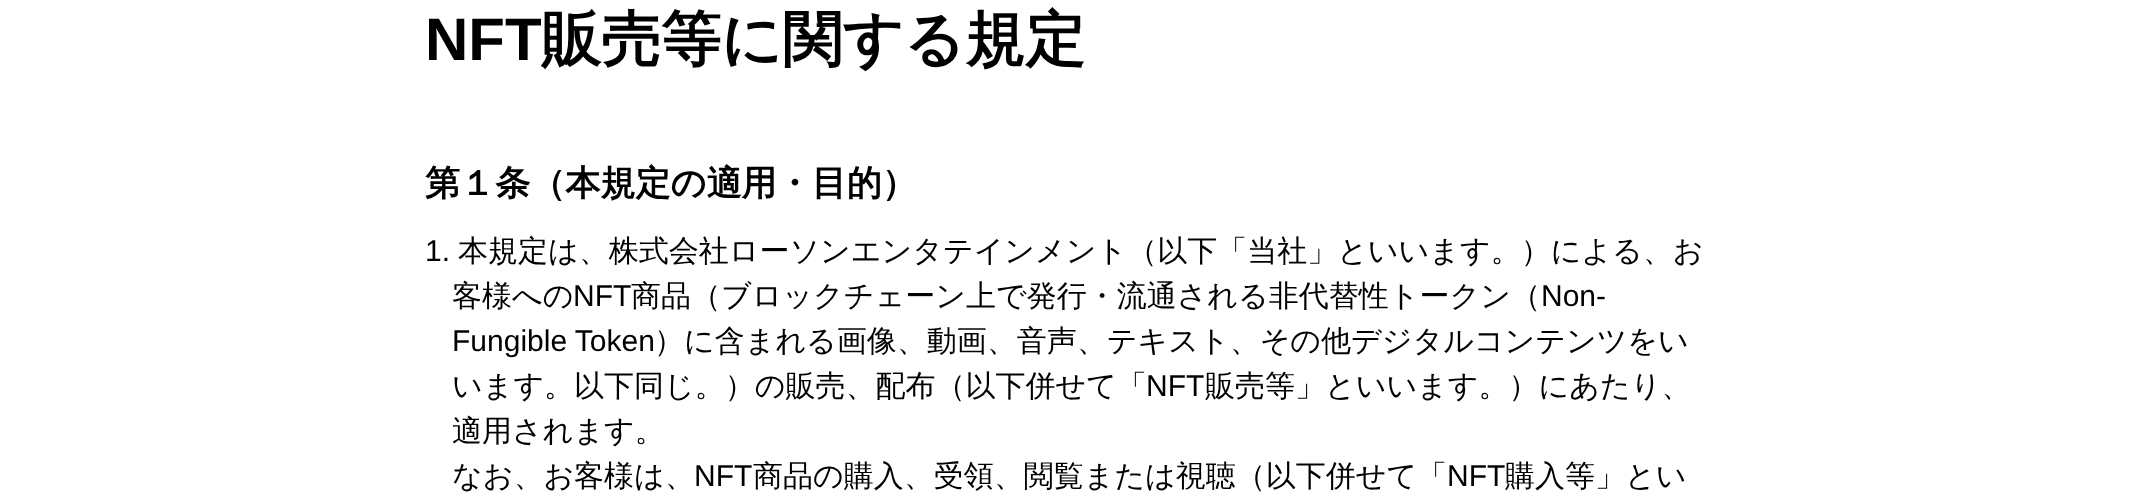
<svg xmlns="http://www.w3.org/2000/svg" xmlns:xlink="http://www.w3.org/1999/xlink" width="2138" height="496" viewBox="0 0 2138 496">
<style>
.cls-1{font:bold 60px Liberation Sans;fill:#000000}
.cls-2{font:bold 60px WenQuanYi Zen Hei;fill:#000000}
.cls-3{font:bold 35.1px WenQuanYi Zen Hei;fill:#000000}
.cls-4{font:30px Liberation Sans;fill:#000000}
.cls-5{font:500 30px WenQuanYi Zen Hei;fill:#000000}
</style>
<rect width="100%" height="100%" fill="#ffffff"/>
<text class="cls-1" x="425" y="60">NFT</text>
<text class="cls-2" x="541" y="60">販売等に関する規定</text>
<text class="cls-3" x="425" y="195">第１条（本規定の適用・目的）</text>
<text class="cls-4" x="425" y="261">1.</text>
<text class="cls-5" x="458" y="261">本規定は、株式会社ローソンエンタテインメント（以下「当社」といいます。）による、お</text>
<text class="cls-5" x="452" y="306">客様への</text>
<text class="cls-4" x="573" y="306">NFT</text>
<text class="cls-5" x="631" y="306">商品（ブロックチェーン上で発行・流通される非代替性トークン（</text>
<text class="cls-4" x="1541" y="306">Non-</text>
<text class="cls-4" x="452" y="351">Fungible Token</text>
<text class="cls-5" x="654" y="351">）に含まれる画像、動画、音声、テキスト、その他デジタルコンテンツをい</text>
<text class="cls-5" x="452" y="396">います。以下同じ。）の販売、配布（以下併せて「</text>
<text class="cls-4" x="1146" y="396">NFT</text>
<text class="cls-5" x="1205" y="396">販売等」といいます。）にあたり、</text>
<text class="cls-5"><tspan x="452" y="441">適用されます。</tspan><tspan x="452" y="486">なお、お客様は、</tspan></text>
<text class="cls-4" x="694" y="486">NFT</text>
<text class="cls-5" x="753" y="486">商品の購入、受領、閲覧または視聴（以下併せて「</text>
<text class="cls-4" x="1447" y="486">NFT</text>
<text class="cls-5" x="1505" y="486">購入等」とい</text>
</svg>
